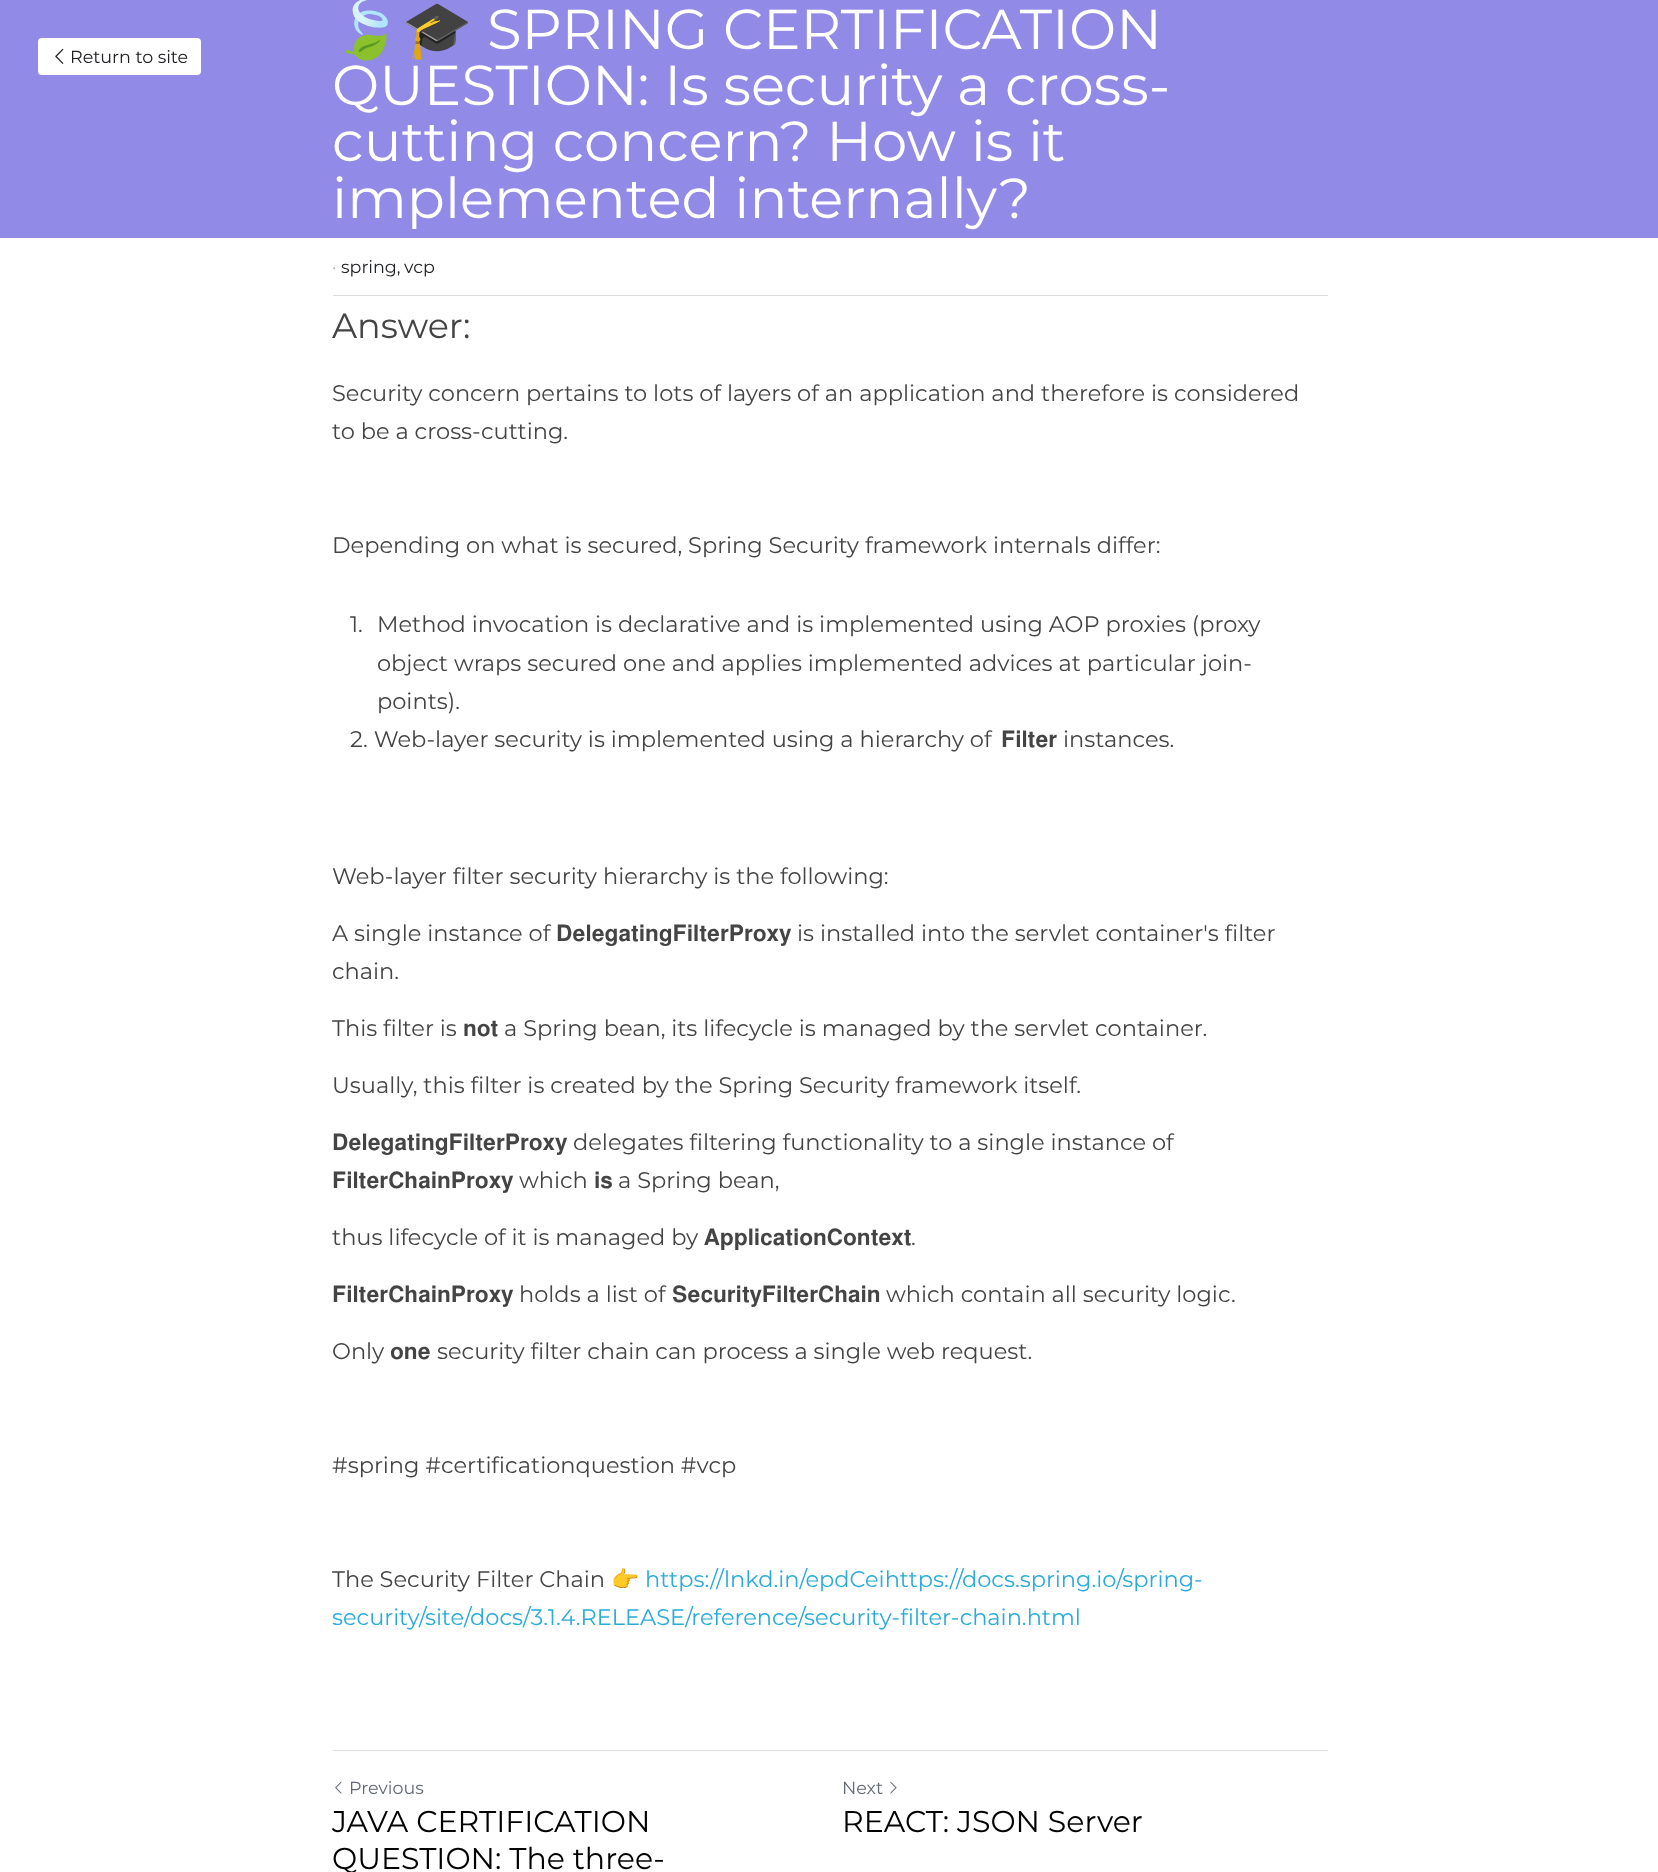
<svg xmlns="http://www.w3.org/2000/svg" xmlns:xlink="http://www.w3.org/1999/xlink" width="1658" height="1872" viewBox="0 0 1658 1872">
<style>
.cls-1{font:17.5px Montserrat;fill:#202124}
.cls-2{font:56.25px Noto Color Emoji;fill:#ffffff}
.cls-3{font:56.25px Montserrat;fill:#ffffff}
.cls-4{font:17.5px Montserrat;fill:#a9aeb2}
.cls-5{font:35px Montserrat;fill:#444444}
.cls-6{font:22.5px Montserrat;fill:#444444}
.cls-7{font:22.5px FreeSans;fill:#444444}
.cls-8{font:22.5px Noto Color Emoji;fill:#444444}
.cls-9{font:22.5px Montserrat;fill:#2aabd9}
.cls-10{font:17.5px Montserrat;fill:#636972}
.cls-11{font:30px Montserrat;fill:#000000}
</style>
<rect width="100%" height="100%" fill="#ffffff"/>
<rect fill="#918ae7" x="0" y="0" width="1658" height="238"/>
<rect fill="#ffffff" x="38" y="38" width="163" height="37" rx="4"/>
<image xlink:href="image0.png" x="55" y="48" width="9" height="16"/>
<rect fill="#dddddd" x="333" y="295" width="995" height="1"/>
<rect fill="#dddddd" x="333" y="1750" width="995" height="1"/>
<image xlink:href="image1.png" x="335" y="1781" width="7" height="13"/>
<image xlink:href="image2.png" x="890" y="1781" width="7" height="13"/>
<text class="cls-1" x="70" y="63">Return to site</text>
<text class="cls-2" x="332" y="49">🍃🎓</text>
<text class="cls-3" x="487" y="49">SPRING CERTIFICATION</text>
<text class="cls-3"><tspan x="332" y="105">QUESTION: Is security a cross-</tspan><tspan x="332" y="161">cutting concern? How is it</tspan><tspan x="332" y="218">implemented internally?</tspan></text>
<text class="cls-4" x="332" y="273">·</text>
<text class="cls-1" x="341" y="273">spring,</text>
<text class="cls-1" x="404" y="273">vcp</text>
<text class="cls-5" x="332" y="338">Answer:</text>
<text class="cls-6"><tspan x="332" y="401">Security concern pertains to lots of layers of an application and therefore is considered</tspan><tspan x="332" y="439">to be a cross-cutting.</tspan></text>
<text class="cls-6" x="332" y="553">Depending on what is secured, Spring Security framework internals differ:</text>
<text class="cls-6" x="350" y="632">1.</text>
<text class="cls-6"><tspan x="377" y="632">Method invocation is declarative and is implemented using AOP proxies (proxy</tspan><tspan x="377" y="671">object wraps secured one and applies implemented advices at particular join-</tspan><tspan x="377" y="709">points).</tspan></text>
<text class="cls-6" x="350" y="747">2. Web-layer security is implemented using a hierarchy of</text>
<text class="cls-7" x="1001" y="747">𝐅𝐢𝐥𝐭𝐞𝐫</text>
<text class="cls-6" x="1063" y="747">instances.</text>
<text class="cls-6" x="332" y="884">Web-layer filter security hierarchy is the following:</text>
<text class="cls-6" x="332" y="941">A single instance of</text>
<text class="cls-7" x="556" y="941">𝐃𝐞𝐥𝐞𝐠𝐚𝐭𝐢𝐧𝐠𝐅𝐢𝐥𝐭𝐞𝐫𝐏𝐫𝐨𝐱𝐲</text>
<text class="cls-6" x="797" y="941">is installed into the servlet container's filter</text>
<text class="cls-6" x="332" y="979">chain.</text>
<text class="cls-6" x="332" y="1036">This filter is</text>
<text class="cls-7" x="463" y="1036">𝐧𝐨𝐭</text>
<text class="cls-6" x="504" y="1036">a Spring bean, its lifecycle is managed by the servlet container.</text>
<text class="cls-6" x="332" y="1093">Usually, this filter is created by the Spring Security framework itself.</text>
<text class="cls-7" x="332" y="1150">𝐃𝐞𝐥𝐞𝐠𝐚𝐭𝐢𝐧𝐠𝐅𝐢𝐥𝐭𝐞𝐫𝐏𝐫𝐨𝐱𝐲</text>
<text class="cls-6" x="573" y="1150">delegates filtering functionality to a single instance of</text>
<text class="cls-7" x="332" y="1188">𝐅𝐢𝐥𝐭𝐞𝐫𝐂𝐡𝐚𝐢𝐧𝐏𝐫𝐨𝐱𝐲</text>
<text class="cls-6" x="519" y="1188">which</text>
<text class="cls-7" x="594" y="1188">𝐢𝐬</text>
<text class="cls-6" x="618" y="1188">a Spring bean,</text>
<text class="cls-6" x="332" y="1245">thus lifecycle of it is managed by</text>
<text class="cls-7" x="704" y="1245">𝐀𝐩𝐩𝐥𝐢𝐜𝐚𝐭𝐢𝐨𝐧𝐂𝐨𝐧𝐭𝐞𝐱𝐭</text>
<text class="cls-6" x="911" y="1245">.</text>
<text class="cls-7" x="332" y="1302">𝐅𝐢𝐥𝐭𝐞𝐫𝐂𝐡𝐚𝐢𝐧𝐏𝐫𝐨𝐱𝐲</text>
<text class="cls-6" x="519" y="1302">holds a list of</text>
<text class="cls-7" x="672" y="1302">𝐒𝐞𝐜𝐮𝐫𝐢𝐭𝐲𝐅𝐢𝐥𝐭𝐞𝐫𝐂𝐡𝐚𝐢𝐧</text>
<text class="cls-6" x="886" y="1302">which contain all security logic.</text>
<text class="cls-6" x="332" y="1359">Only</text>
<text class="cls-7" x="390" y="1359">𝐨𝐧𝐞</text>
<text class="cls-6" x="437" y="1359">security filter chain can process a single web request.</text>
<text class="cls-6" x="332" y="1473">#spring #certificationquestion #vcp</text>
<text class="cls-6" x="332" y="1587">The Security Filter Chain</text>
<text class="cls-8" x="611" y="1587">👉</text>
<text class="cls-9" x="645" y="1587">https://lnkd.in/epdCeihttps://docs.spring.io/spring-</text>
<text class="cls-9" x="332" y="1625">security/site/docs/3.1.4.RELEASE/reference/security-filter-chain.html</text>
<text class="cls-10" x="349" y="1794">Previous</text>
<text class="cls-11"><tspan x="332" y="1832">JAVA CERTIFICATION</tspan><tspan x="332" y="1869">QUESTION: The three-</tspan></text>
<text class="cls-10" x="842" y="1794">Next</text>
<text class="cls-11" x="842" y="1832">REACT: JSON Server</text>
</svg>
